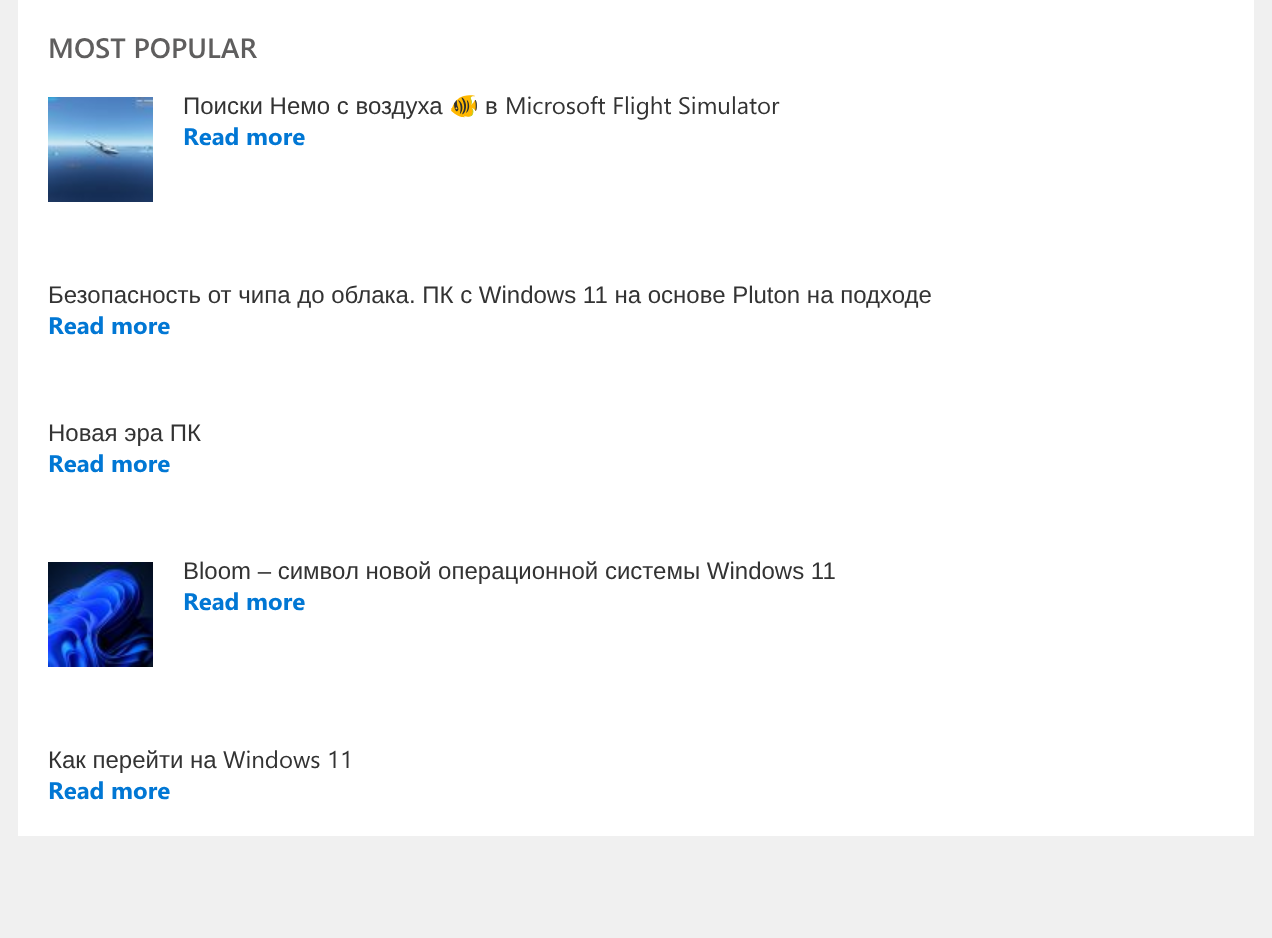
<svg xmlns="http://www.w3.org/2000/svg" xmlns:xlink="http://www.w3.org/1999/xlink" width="1272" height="938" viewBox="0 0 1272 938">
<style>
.cls-1{font:600 28px Segoe UI;fill:#5f5e5e}
.cls-2{font:24px Liberation Sans;fill:#333333}
.cls-3{font:24px Noto Color Emoji;fill:#333333}
.cls-4{font:24px Segoe UI;fill:#333333}
.cls-5{font:bold 24px Segoe UI;fill:#0177d4}
</style>
<rect width="100%" height="100%" fill="#f0f0f0"/>
<rect fill="#ffffff" x="18" y="0" width="1236" height="836"/>
<image xlink:href="image0.png" x="48" y="97" width="105" height="105"/>
<image xlink:href="image1.png" x="48" y="562" width="105" height="105"/>
<text class="cls-1" x="48" y="58">MOST POPULAR</text>
<text class="cls-2" x="183" y="114">Поиски Немо с воздуха</text>
<text class="cls-3" x="449" y="114">🐠</text>
<text class="cls-2" x="485" y="114">в</text>
<text class="cls-4" x="505" y="114">Microsoft Flight Simulator</text>
<text class="cls-5" x="183" y="145">Read more</text>
<text class="cls-2" x="48" y="303">Безопасность от чипа до облака. ПК с Windows 11 на основе Pluton на подходе</text>
<text class="cls-5" x="48" y="334">Read more</text>
<text class="cls-2" x="48" y="441">Новая эра ПК</text>
<text class="cls-5" x="48" y="472">Read more</text>
<text class="cls-2" x="183" y="579">Bloom – символ новой операционной системы Windows 11</text>
<text class="cls-5" x="183" y="610">Read more</text>
<text class="cls-2" x="48" y="768">Как перейти на</text>
<text class="cls-4" x="223" y="768">Windows 11</text>
<text class="cls-5" x="48" y="799">Read more</text>
</svg>
